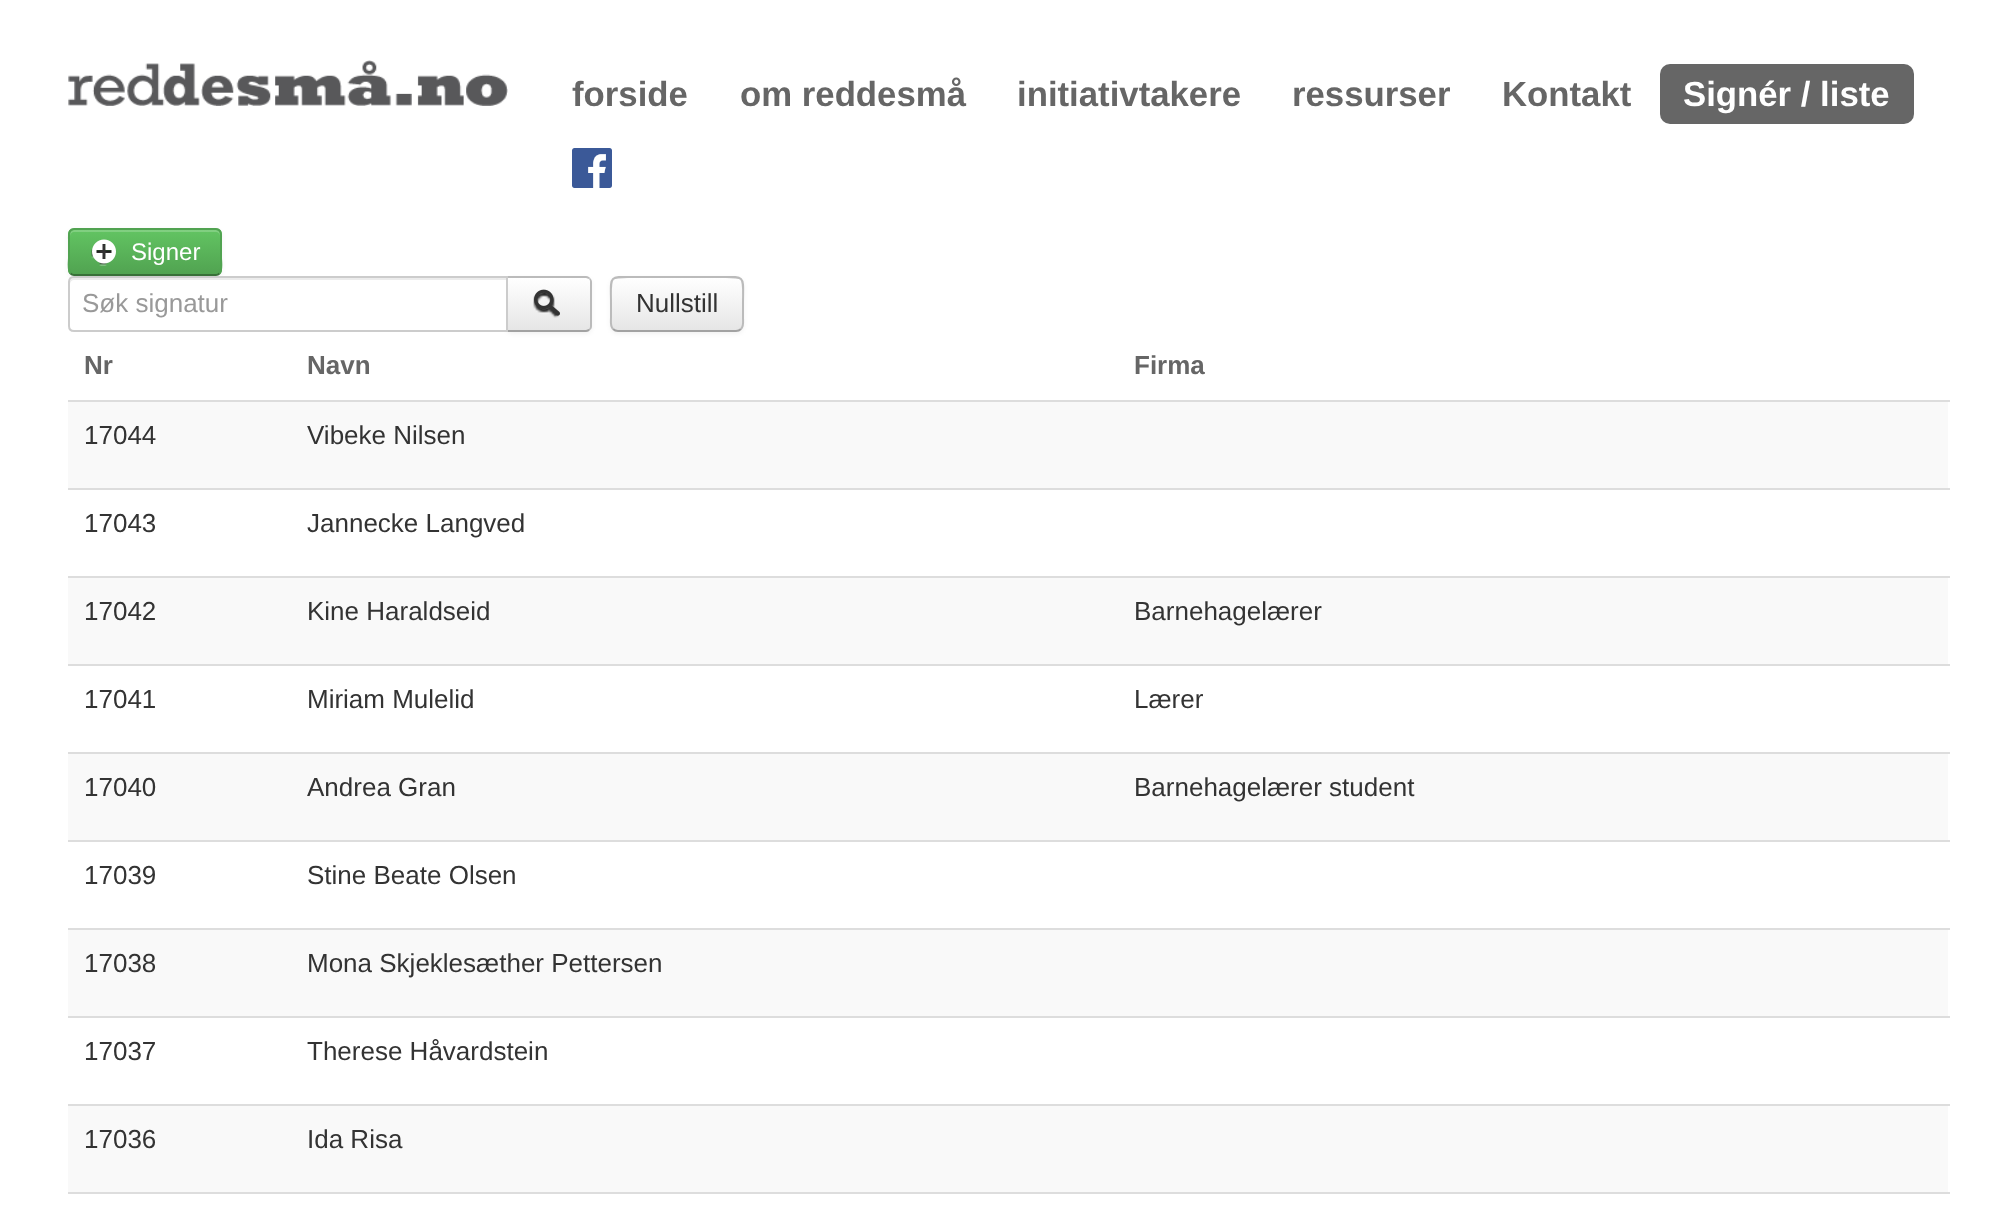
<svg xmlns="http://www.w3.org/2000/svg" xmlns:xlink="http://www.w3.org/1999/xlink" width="2016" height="1213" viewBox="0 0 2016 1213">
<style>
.cls-1{font:bold 34.75px Liberation Sans;fill:#666666}
.cls-2{font:bold 34.75px Liberation Sans;fill:#ffffff}
.cls-3{font:24px Liberation Sans;fill:#ffffff}
.cls-4{font:26px Liberation Sans;fill:#999999}
.cls-5{font:26px Liberation Sans;fill:#333333}
.cls-6{font:bold 26px Liberation Sans;fill:#666666}
</style>
<defs>
<clipPath id="clip1"><rect x="68" y="228" width="154" height="48" rx="6"/></clipPath>
<linearGradient id="g1" gradientUnits="userSpaceOnUse" x1="145" y1="230" x2="145" y2="274"><stop offset="0" stop-color="#62c462"/><stop offset="1" stop-color="#51a351"/></linearGradient>
<clipPath id="clip2"><path d="M506 276H586C589.5 276 592 278.5 592 282V326C592 329.5 589.5 332 586 332H506Z"/></clipPath>
<linearGradient id="g2" gradientUnits="userSpaceOnUse" x1="549" y1="278" x2="549" y2="330"><stop offset="0" stop-color="#ffffff"/><stop offset="1" stop-color="#e6e6e6"/></linearGradient>
<clipPath id="clip3"><rect x="610" y="276" width="134" height="56" rx="8"/></clipPath>
<linearGradient id="g3" gradientUnits="userSpaceOnUse" x1="677" y1="278" x2="677" y2="330"><stop offset="0" stop-color="#ffffff"/><stop offset="1" stop-color="#e6e6e6"/></linearGradient>
</defs>
<rect width="100%" height="100%" fill="#ffffff"/>
<image xlink:href="image0.png" x="68" y="60" width="440" height="46"/>
<rect fill="#666666" x="1660" y="64" width="254" height="60" rx="10"/>
<image xlink:href="image1.png" x="572" y="148" width="40" height="40"/>
<rect fill="#000000" fill-opacity="0.05" filter="blur(2px)" x="68" y="230" width="154" height="48" rx="6"/>
<g clip-path="url(#clip1)">
<rect fill="url(#g1)" x="68" y="230" width="154" height="44"/>
</g>
<path fill="#ffffff" fill-opacity="0.2" d="M74 232H216C218 232 220 234 220 236V234C220 232 218 230 216 230H74C72 230 70 232 70 234V236C70 234 72 232 74 232Z"/>
<path fill="none" stroke="#387038" stroke-width="2" d="M219.5 273.5C218.5 274.5 217.5 275 216 275H74C72.5 275 71.5 274.5 70.5 273.5"/>
<path fill="none" stroke="#51a351" stroke-width="2" d="M70.5 273.5C67.5 270.5 69 261.5 69 258V240C69 236 68 229 74 229H216C222 229 221 236 221 240V258C221 261.5 222.5 270.5 219.5 273.5"/>
<image xlink:href="image2.png" x="91" y="244" width="24" height="22"/>
<image xlink:href="image3.png" x="92" y="239" width="24" height="25"/>
<rect fill="#000000" fill-opacity="0.05" filter="blur(2px)" x="506" y="278" width="86" height="56" rx="6"/>
<path fill="#f5f5f5" d="M506 276H586C589.5 276 592 278.5 592 282V326C592 329.5 589.5 332 586 332H506Z"/>
<g clip-path="url(#clip2)">
<rect fill="url(#g2)" x="508" y="278" width="84" height="52"/>
</g>
<path fill="#bbbbbb" d="M506 276L508 278H586L589 279L590 278C589 277 588 276 586 276Z"/>
<path fill="#bbbbbb" d="M592 326V282C592 280 591 279 590 278L589 279C590 280 590 281 590 282V326C590 327 590 328 589 329L590 330C591 329 592 328 592 326Z"/>
<path fill="#a2a2a2" d="M586 332C588 332 589 331 590 330L589 329L586 330H508L506 332Z"/>
<path fill="#ffffff" d="M74 276H508V332H74C70.5 332 68 329.5 68 326V282C68 278.5 70.5 276 74 276Z"/>
<path fill="#ececec" d="M74 280H506V278H74C72 278 70 280 70 282V284C70 282 72 280 74 280Z"/>
<path fill="none" stroke="#cccccc" stroke-width="2" d="M74 277H507V331H74C71 331 69 329 69 326V282C69 279 71 277 74 277Z"/>
<image xlink:href="image4.png" x="533" y="291" width="27" height="27"/>
<image xlink:href="image5.png" x="534" y="289" width="26" height="27"/>
<rect fill="#000000" fill-opacity="0.05" filter="blur(2px)" x="610" y="278" width="134" height="56" rx="8"/>
<rect fill="#f5f5f5" x="610" y="276" width="134" height="56" rx="8"/>
<g clip-path="url(#clip3)">
<rect fill="url(#g3)" x="610" y="278" width="134" height="52"/>
</g>
<path fill="none" stroke="#a2a2a2" stroke-width="2" d="M741 329C739.5 330.5 738 331 736 331H618C616 331 614.5 330.5 613 329"/>
<path fill="none" stroke="#bbbbbb" stroke-width="2" d="M613 329C610 326 611 321 611 317.5V304C611 274 607 277 637.5 277H716.5C747 277 743 274 743 304V317.5C743 321 744 326 741 329"/>
<rect fill="#dddddd" x="68" y="400" width="1882" height="2"/>
<rect fill="#f9f9f9" x="68" y="402" width="1880" height="86"/>
<rect fill="#dddddd" x="68" y="488" width="1882" height="2"/>
<rect fill="#f9f9f9" x="68" y="578" width="1880" height="86"/>
<rect fill="#dddddd" x="68" y="576" width="1882" height="2"/>
<rect fill="#dddddd" x="68" y="664" width="1882" height="2"/>
<rect fill="#f9f9f9" x="68" y="754" width="1880" height="86"/>
<rect fill="#dddddd" x="68" y="752" width="1882" height="2"/>
<rect fill="#dddddd" x="68" y="840" width="1882" height="2"/>
<rect fill="#dddddd" x="68" y="928" width="1882" height="2"/>
<rect fill="#f9f9f9" x="68" y="930" width="1880" height="86"/>
<rect fill="#dddddd" x="68" y="1016" width="1882" height="2"/>
<rect fill="#dddddd" x="68" y="1104" width="1882" height="2"/>
<rect fill="#f9f9f9" x="68" y="1106" width="1880" height="86"/>
<rect fill="#dddddd" x="68" y="1192" width="1882" height="2"/>
<text class="cls-1" x="572" y="106">forside</text>
<text class="cls-1" x="740" y="106">om reddesmå</text>
<text class="cls-1" x="1017" y="106">initiativtakere</text>
<text class="cls-1" x="1292" y="106">ressurser</text>
<text class="cls-1" x="1502" y="106">Kontakt</text>
<text class="cls-2" x="1683" y="106">Signér / liste</text>
<text class="cls-3" x="131" y="260">Signer</text>
<text class="cls-4" x="82" y="312">Søk signatur</text>
<text class="cls-5" x="636" y="312">Nullstill</text>
<text class="cls-6" x="84" y="374">Nr</text>
<text class="cls-6" x="307" y="374">Navn</text>
<text class="cls-6" x="1134" y="374">Firma</text>
<text class="cls-5" x="84" y="444">17044</text>
<text class="cls-5" x="307" y="444">Vibeke Nilsen</text>
<text class="cls-5" x="84" y="532">17043</text>
<text class="cls-5" x="307" y="532">Jannecke Langved</text>
<text class="cls-5" x="84" y="620">17042</text>
<text class="cls-5" x="307" y="620">Kine Haraldseid</text>
<text class="cls-5" x="1134" y="620">Barnehagelærer</text>
<text class="cls-5" x="84" y="708">17041</text>
<text class="cls-5" x="307" y="708">Miriam Mulelid</text>
<text class="cls-5" x="1134" y="708">Lærer</text>
<text class="cls-5" x="84" y="796">17040</text>
<text class="cls-5" x="307" y="796">Andrea Gran</text>
<text class="cls-5" x="1134" y="796">Barnehagelærer student</text>
<text class="cls-5" x="84" y="884">17039</text>
<text class="cls-5" x="307" y="884">Stine Beate Olsen</text>
<text class="cls-5" x="84" y="972">17038</text>
<text class="cls-5" x="307" y="972">Mona Skjeklesæther Pettersen</text>
<text class="cls-5" x="84" y="1060">17037</text>
<text class="cls-5" x="307" y="1060">Therese Håvardstein</text>
<text class="cls-5" x="84" y="1148">17036</text>
<text class="cls-5" x="307" y="1148">Ida Risa</text>
</svg>
